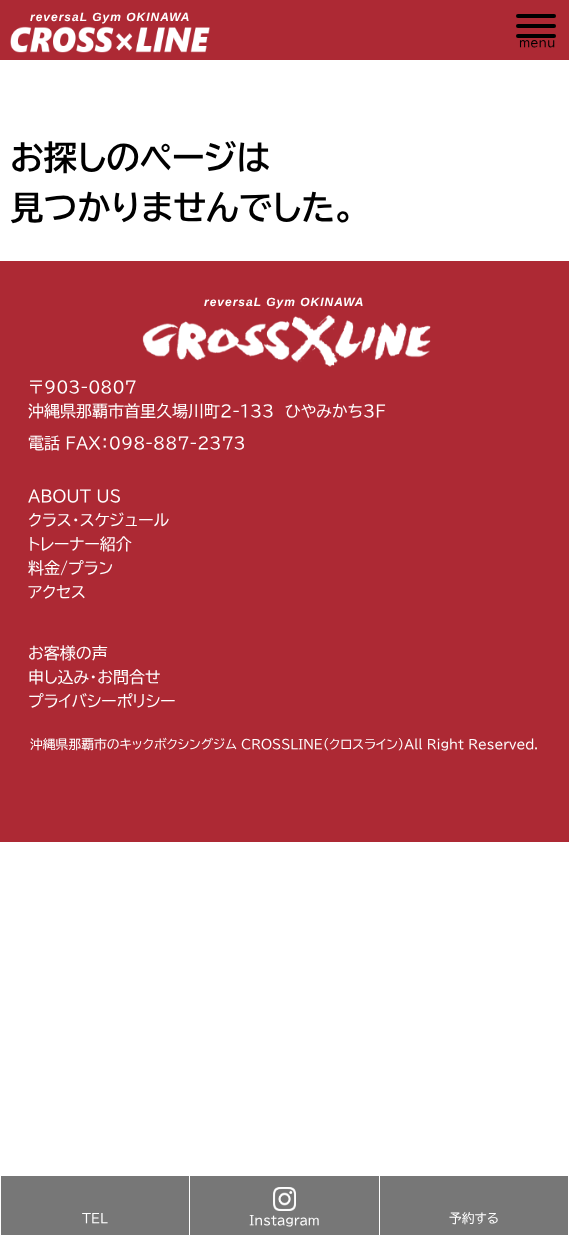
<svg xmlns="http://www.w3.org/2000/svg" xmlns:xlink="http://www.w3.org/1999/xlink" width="569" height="1235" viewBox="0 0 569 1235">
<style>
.cls-1{font:italic bold 12px Liberation Sans;letter-spacing:1px;fill:#ffffff}
.cls-2{font:12px BIZ UDPGothic;fill:#000000}
.cls-3{font:bold 33.6px BIZ UDPGothic;fill:#000000}
.cls-4{font:16px BIZ UDPGothic;fill:#ffffff}
.cls-5{font:12.8px BIZ UDPGothic;fill:#ffffff}
</style>
<rect width="100%" height="100%" fill="#ffffff"/>
<rect fill="#ad2934" x="0" y="0" width="569" height="60"/>
<image xlink:href="image0.png" x="10" y="26" width="200" height="27"/>
<rect fill="#000000" x="516" y="14" width="40" height="4" rx="2"/>
<rect fill="#000000" x="516" y="24" width="40" height="4" rx="2"/>
<rect fill="#000000" x="516" y="34" width="40" height="4" rx="2"/>
<rect fill="#ad2934" x="0" y="261" width="569" height="581"/>
<image xlink:href="image1.png" x="142" y="315" width="289" height="52"/>
<rect fill="#777777" x="1" y="1176" width="188" height="59"/>
<rect fill="#777777" x="190" y="1176" width="189" height="59"/>
<image xlink:href="image2.png" x="273" y="1187" width="23" height="24"/>
<rect fill="#777777" x="380" y="1176" width="188" height="59"/>
<text class="cls-1" x="30" y="21">reversaL Gym OKINAWA</text>
<text class="cls-2" x="519" y="47">menu</text>
<text class="cls-3"><tspan x="10" y="170">お探しのページは</tspan><tspan x="10" y="220">見つかりませんでした。</tspan></text>
<text class="cls-1" x="204" y="306">reversaL Gym OKINAWA</text>
<text class="cls-4"><tspan x="28" y="393">〒903-0807</tspan><tspan x="28" y="417">沖縄県那覇市首里久場川町2-133</tspan></text>
<text class="cls-4" x="285" y="417">ひやみかち3F</text>
<text class="cls-4" x="28" y="449">電話 FAX：098-887-2373</text>
<text class="cls-4"><tspan x="28" y="502">ABOUT US</tspan><tspan x="28" y="526">クラス・スケジュール</tspan><tspan x="28" y="550">トレーナー紹介</tspan><tspan x="28" y="574">料金/プラン</tspan><tspan x="28" y="598">アクセス</tspan></text>
<text class="cls-4"><tspan x="28" y="659">お客様の声</tspan><tspan x="28" y="683">申し込み・お問合せ</tspan><tspan x="28" y="707">プライバシーポリシー</tspan></text>
<text class="cls-5" x="82" y="1223">TEL</text>
<text class="cls-5" x="249" y="1225">Instagram</text>
<text class="cls-5" x="449" y="1223">予約する</text>
<text class="cls-5" x="30" y="749">沖縄県那覇市のキックボクシングジム CROSSLINE（クロスライン）All Right Reserved.</text>
</svg>
